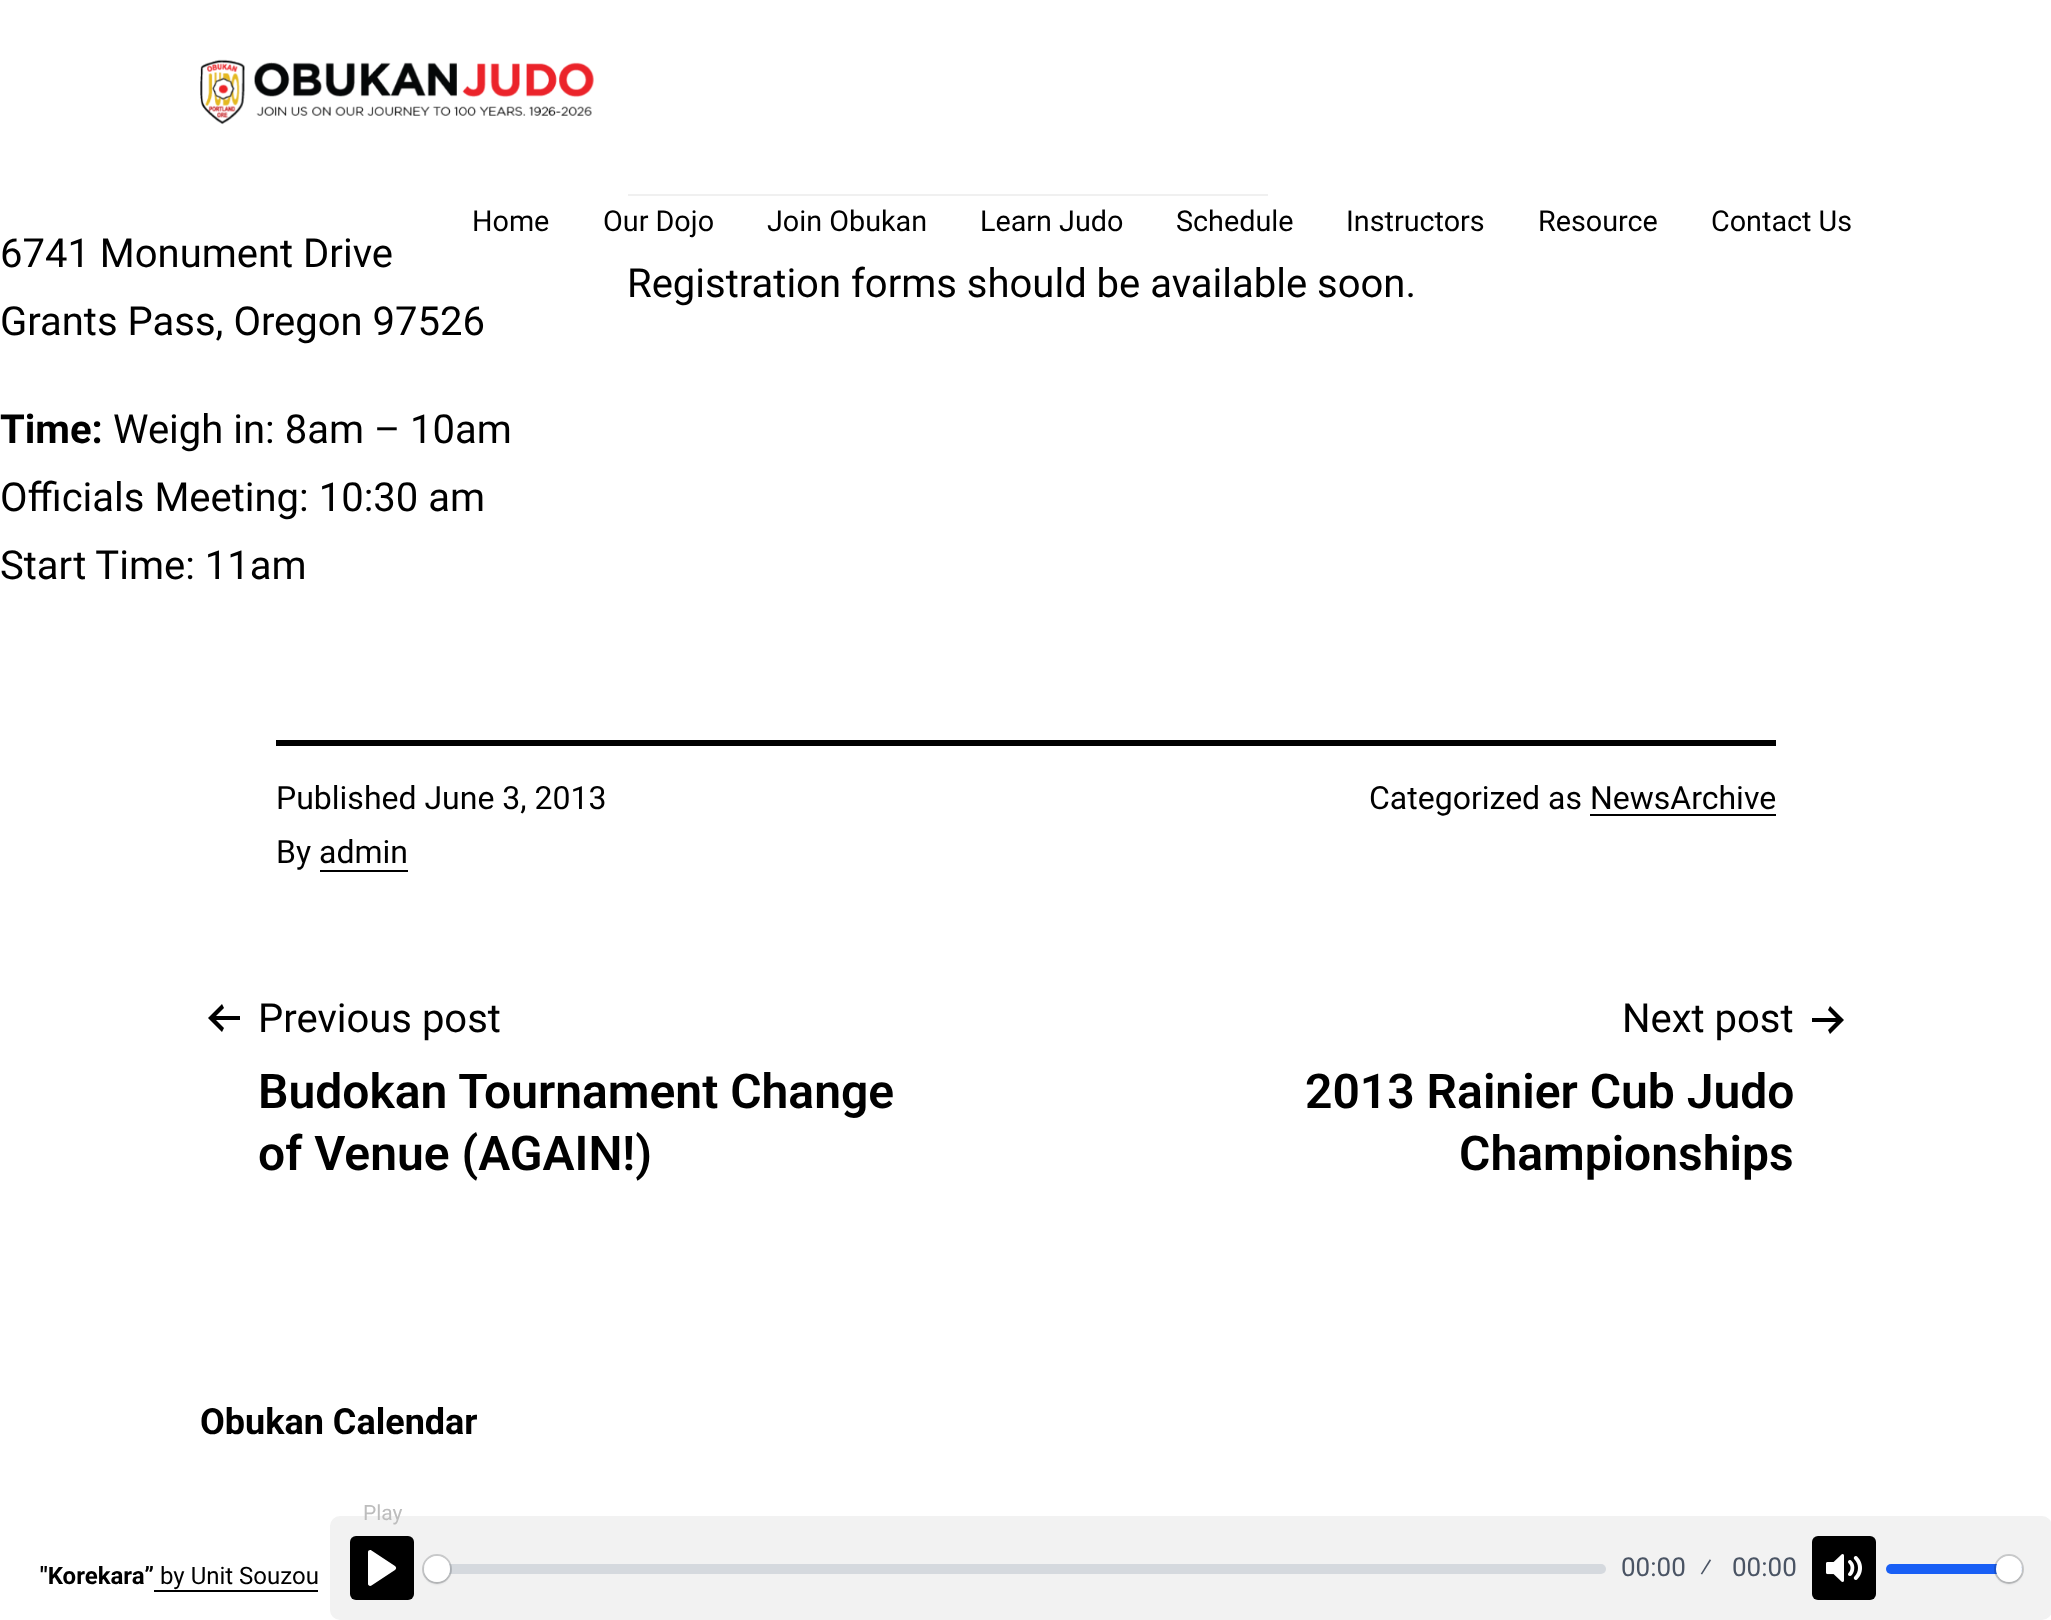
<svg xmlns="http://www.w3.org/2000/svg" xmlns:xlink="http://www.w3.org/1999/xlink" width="2051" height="1620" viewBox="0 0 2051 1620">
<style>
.cls-1{font:28.75px Roboto;fill:#000000}
.cls-2{font:40px Roboto;fill:#000000}
.cls-3{font:bold 40px Roboto;fill:#000000}
.cls-4{font:32px Roboto;fill:#000000}
.cls-5{font:600 48px Roboto;fill:#000000}
.cls-6{font:bold 24px Roboto;fill:#000000}
.cls-7{font:24px Roboto;fill:#000000}
.cls-8{font:21px Roboto;fill:#bdbdbd}
.cls-9{font:26px Roboto;fill:#4a5464}
.cls-10{font:bold 36px Roboto;fill:#000000}
</style>
<rect width="100%" height="100%" fill="#ffffff"/>
<image xlink:href="image0.png" x="200" y="59" width="394" height="66"/>
<rect fill="#f0f0f0" x="628" y="194" width="640" height="2"/>
<rect fill="#000000" x="276" y="740" width="1500" height="6"/>
<rect fill="#000000" x="320" y="870" width="88" height="2"/>
<rect fill="#000000" x="1590" y="814" width="186" height="2"/>
<path fill="#000000" fill-rule="evenodd" d="M240 1020V1016H216L224 1008L222 1004L208 1018L222 1032L224 1028L216 1020Z"/>
<path fill="#000000" fill-rule="evenodd" d="M1812 1022V1018H1836L1828 1010L1830 1006L1844 1020L1830 1034L1828 1030L1836 1022Z"/>
<rect fill="#000000" x="154" y="1590" width="164" height="2"/>
<rect fill="#f2f2f2" x="330" y="1516" width="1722" height="104" rx="10"/>
<rect fill="#000000" x="350" y="1536" width="64" height="64" rx="6"/>
<path fill="#ffffff" d="M395 1566L371.5 1550.5C370 1549.5 368 1550.5 368 1552V1584C368 1585.5 370 1586.5 371.5 1585.5L395 1570C396.5 1569 396.5 1567 395 1566Z"/>
<rect fill="#c1c8d1" fill-opacity="0.6" x="424" y="1564" width="1182" height="10" rx="5"/>
<circle fill="none" stroke="#23282f" stroke-opacity="0.2" stroke-width="2" cx="437" cy="1569" r="14"/>
<rect fill="#23282f" fill-opacity="0.15" filter="blur(1px)" x="424" y="1558" width="26" height="26" rx="13"/>
<circle fill="#ffffff" cx="437" cy="1569" r="13"/>
<rect fill="#000000" x="1812" y="1536" width="64" height="64" rx="6"/>
<image xlink:href="image1.png" x="1826" y="1554" width="36" height="28"/>
<rect fill="#195ff5" x="1886" y="1564" width="136" height="10" rx="5"/>
<circle fill="none" stroke="#23282f" stroke-opacity="0.2" stroke-width="2" cx="2009" cy="1569" r="14"/>
<rect fill="#23282f" fill-opacity="0.15" filter="blur(1px)" x="1996" y="1558" width="26" height="26" rx="13"/>
<circle fill="#ffffff" cx="2009" cy="1569" r="13"/>
<text class="cls-1" x="472" y="231">Home</text>
<text class="cls-1" x="603" y="231">Our Dojo</text>
<text class="cls-1" x="767" y="231">Join Obukan</text>
<text class="cls-1" x="980" y="231">Learn Judo</text>
<text class="cls-1" x="1176" y="231">Schedule</text>
<text class="cls-1" x="1346" y="231">Instructors</text>
<text class="cls-1" x="1538" y="231">Resource</text>
<text class="cls-1" x="1711" y="231">Contact Us</text>
<text class="cls-2"><tspan x="0" y="267">6741 Monument Drive</tspan><tspan x="0" y="335">Grants Pass, Oregon 97526</tspan></text>
<text class="cls-3" x="0" y="443">Time:</text>
<text class="cls-2" x="113" y="443">Weigh in: 8am – 10am</text>
<text class="cls-2"><tspan x="0" y="511">Officials Meeting: 10:30 am</tspan><tspan x="0" y="579">Start Time: 11am</tspan></text>
<text class="cls-2" x="627" y="297">Registration forms should be available soon.</text>
<text class="cls-4"><tspan x="276" y="809">Published June 3, 2013</tspan><tspan x="276" y="863">By admin</tspan></text>
<text class="cls-4" x="1369" y="809">Categorized as NewsArchive</text>
<text class="cls-2" x="258" y="1032">Previous post</text>
<text class="cls-5"><tspan x="258" y="1108">Budokan Tournament Change</tspan><tspan x="258" y="1170">of Venue (AGAIN!)</tspan></text>
<text class="cls-2" x="1622" y="1032">Next post</text>
<text class="cls-5" x="1305" y="1108">2013 Rainier Cub Judo</text>
<text class="cls-5" x="1459" y="1170">Championships</text>
<text class="cls-6" x="40" y="1584">"Korekara”</text>
<text class="cls-7" x="160" y="1584">by Unit Souzou</text>
<text class="cls-8" x="363" y="1520">Play</text>
<text class="cls-9" x="1621" y="1576">00:00</text>
<text class="cls-9" x="1700" y="1576">⁄</text>
<text class="cls-9" x="1732" y="1576">00:00</text>
<text class="cls-10" x="200" y="1434">Obukan Calendar</text>
</svg>
